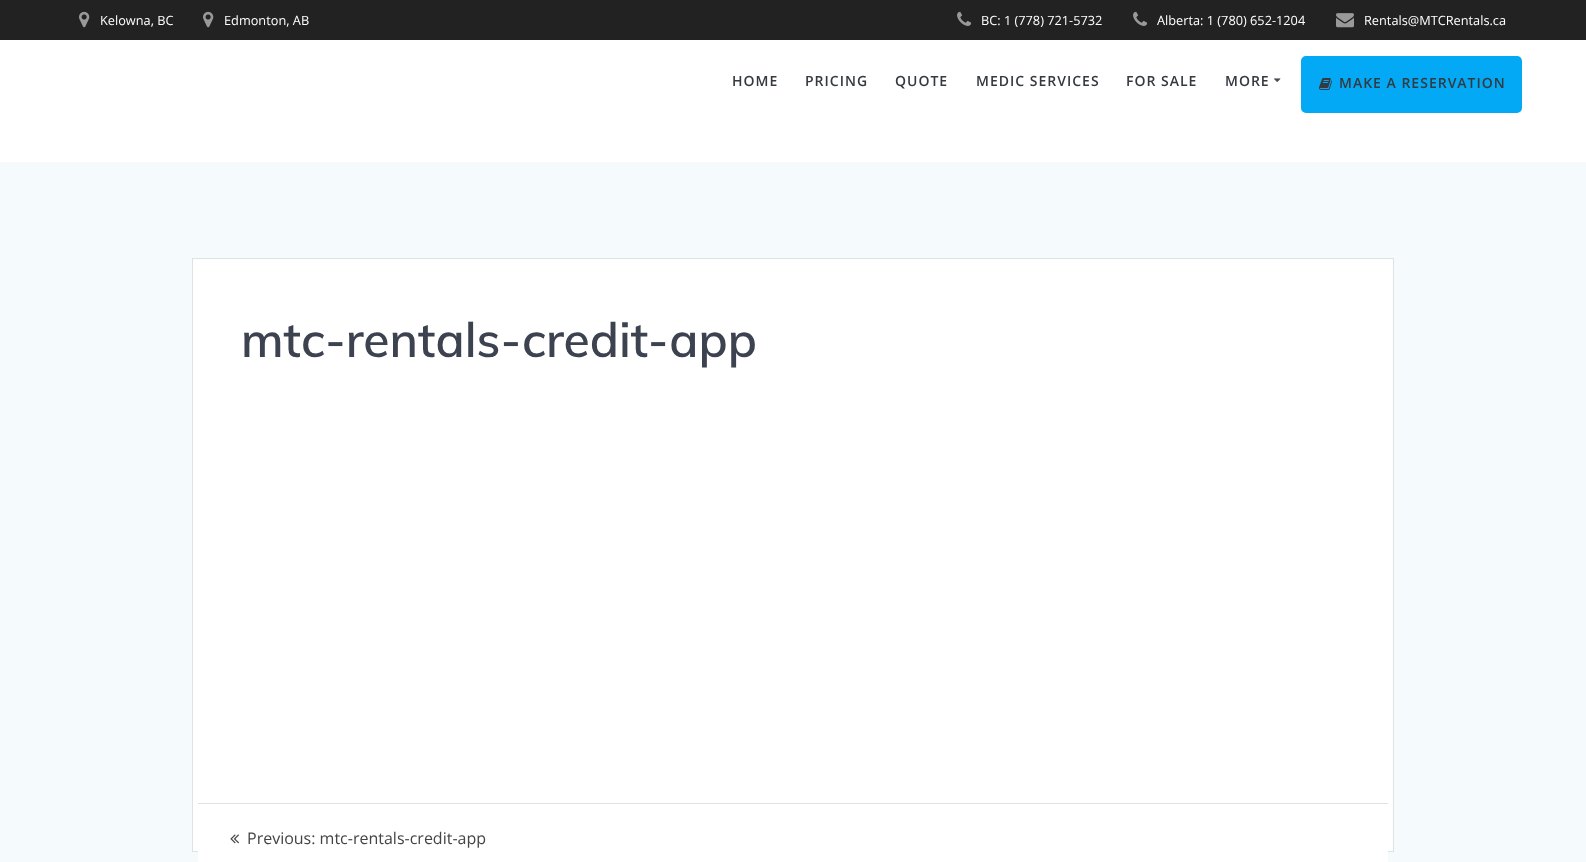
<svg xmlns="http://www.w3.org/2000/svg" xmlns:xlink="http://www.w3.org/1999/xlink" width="1586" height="862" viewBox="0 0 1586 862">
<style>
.cls-1{font:12.75px Open Sans;fill:#ffffff}
.cls-2{font:600 14px Open Sans;letter-spacing:1px;fill:#343a40}
.cls-3{font:600 48px Muli;fill:#3c424f}
.cls-4{font:16px Open Sans;fill:#444444}
</style>
<rect width="100%" height="100%" fill="#ffffff"/>
<rect fill="#222222" x="0" y="0" width="1586" height="40"/>
<image xlink:href="image0.png" x="79" y="11" width="11" height="17"/>
<image xlink:href="image0.png" x="203" y="11" width="11" height="17"/>
<image xlink:href="image1.png" x="957" y="11" width="15" height="15"/>
<image xlink:href="image1.png" x="1133" y="11" width="15" height="15"/>
<image xlink:href="image2.png" x="1336" y="13" width="18" height="15"/>
<image xlink:href="image3.png" x="1274" y="78" width="7" height="4"/>
<rect fill="#03a9f4" stroke="#03a9f4" stroke-width="2" x="1302" y="57" width="219" height="55" rx="4"/>
<image xlink:href="image4.png" x="1319" y="78" width="13" height="12"/>
<rect fill="#f5fafd" x="0" y="162" width="1586" height="700"/>
<rect fill="#ffffff" stroke="#e0e1e1" x="192.5" y="258.5" width="1201" height="593"/>
<rect fill="#ffffff" x="198" y="851" width="1190" height="11"/>
<rect fill="#e0e1e1" x="198" y="803" width="1190" height="1"/>
<image xlink:href="image5.png" x="230" y="834" width="9" height="10"/>
<text class="cls-1" x="100" y="25">Kelowna, BC</text>
<text class="cls-1" x="224" y="25">Edmonton, AB</text>
<text class="cls-1" x="981" y="25">BC: 1 (778) 721-5732</text>
<text class="cls-1" x="1157" y="25">Alberta: 1 (780) 652-1204</text>
<text class="cls-1" x="1364" y="25">Rentals@MTCRentals.ca</text>
<text class="cls-2" x="732" y="86">HOME</text>
<text class="cls-2" x="805" y="86">PRICING</text>
<text class="cls-2" x="895" y="86">QUOTE</text>
<text class="cls-2" x="976" y="86">MEDIC SERVICES</text>
<text class="cls-2" x="1126" y="86">FOR SALE</text>
<text class="cls-2" x="1225" y="86">MORE</text>
<text class="cls-2" x="1339" y="88">MAKE A RESERVATION</text>
<text class="cls-3" x="241" y="357">mtc-rentals-credit-app</text>
<text class="cls-4" x="247" y="844">Previous: mtc-rentals-credit-app</text>
</svg>
